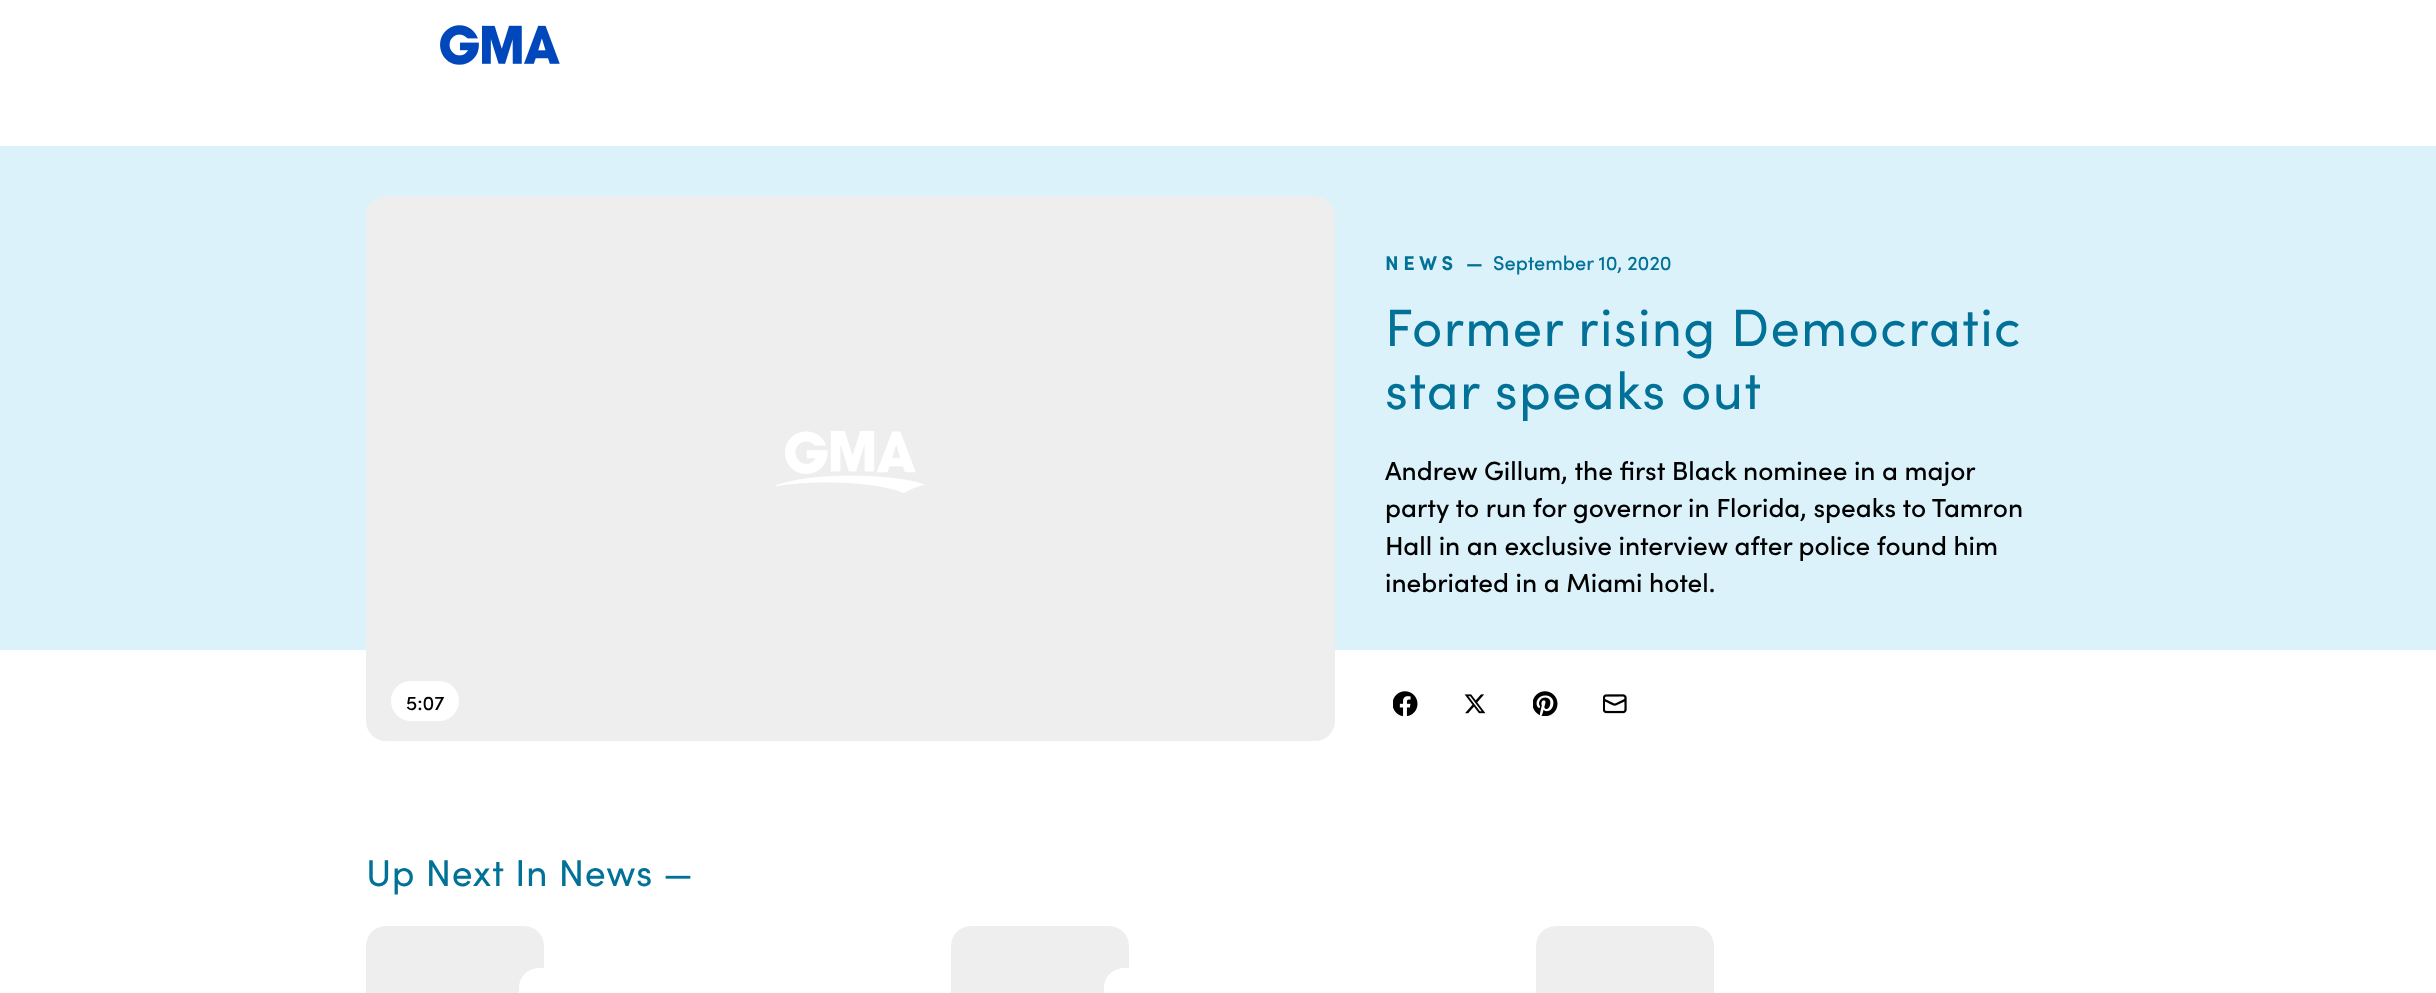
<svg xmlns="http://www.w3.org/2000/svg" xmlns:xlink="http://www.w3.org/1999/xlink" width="2436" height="993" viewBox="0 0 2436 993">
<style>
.cls-1{font:bold 20px Sofia;letter-spacing:4.5px;fill:#027197}
.cls-2{font:bold 20px Sofia;fill:#027197}
.cls-3{font:500 20px Sofia;fill:#027197}
.cls-4{font:52.5px Sofia;letter-spacing:1.3px;fill:#027197}
.cls-5{font:500 26.25px Sofia;fill:#000000}
.cls-6{font:500 20px Sofia;fill:#000000}
.cls-7{font:37.5px Sofia;letter-spacing:0.75px;fill:#027197}
</style>
<rect width="100%" height="100%" fill="#ffffff"/>
<image xlink:href="image0.png" x="440" y="25" width="120" height="40"/>
<rect fill="#dbf2fa" x="0" y="146" width="2436" height="504"/>
<rect fill="#eeeeee" x="366" y="196" width="969" height="545" rx="20"/>
<image xlink:href="image1.png" x="775" y="431" width="150" height="62"/>
<rect fill="#ffffff" x="391" y="681" width="68" height="40" rx="20"/>
<image xlink:href="image2.png" x="1393" y="691" width="25" height="25"/>
<image xlink:href="image3.png" x="1464" y="694" width="22" height="20"/>
<image xlink:href="image4.png" x="1533" y="691" width="25" height="25"/>
<image xlink:href="image5.png" x="1603" y="694" width="24" height="20"/>
<rect fill="#eeeeee" x="366" y="926" width="178" height="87" rx="20"/>
<path fill="#ffffff" d="M539 968H855C866 968 875 977 875 988V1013H519V988C519 977 528 968 539 968Z"/>
<rect fill="#eeeeee" x="951" y="926" width="178" height="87" rx="20"/>
<path fill="#ffffff" d="M1124 968H1440C1451 968 1460 977 1460 988V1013H1104V988C1104 977 1113 968 1124 968Z"/>
<rect fill="#eeeeee" x="1536" y="926" width="178" height="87" rx="20"/>
<text class="cls-1" x="1385" y="270">NEWS</text>
<text class="cls-2" x="1466" y="270">—</text>
<text class="cls-3" x="1493" y="270">September 10, 2020</text>
<text class="cls-4"><tspan x="1385" y="346">Former rising Democratic</tspan><tspan x="1385" y="409">star speaks out</tspan></text>
<text class="cls-5"><tspan x="1385" y="480">Andrew Gillum, the first Black nominee in a major</tspan><tspan x="1385" y="517">party to run for governor in Florida, speaks to Tamron</tspan><tspan x="1385" y="555">Hall in an exclusive interview after police found him</tspan><tspan x="1385" y="592">inebriated in a Miami hotel.</tspan></text>
<text class="cls-6" x="406" y="710">5:07</text>
<text class="cls-7" x="366" y="886">Up Next In News —</text>
</svg>
